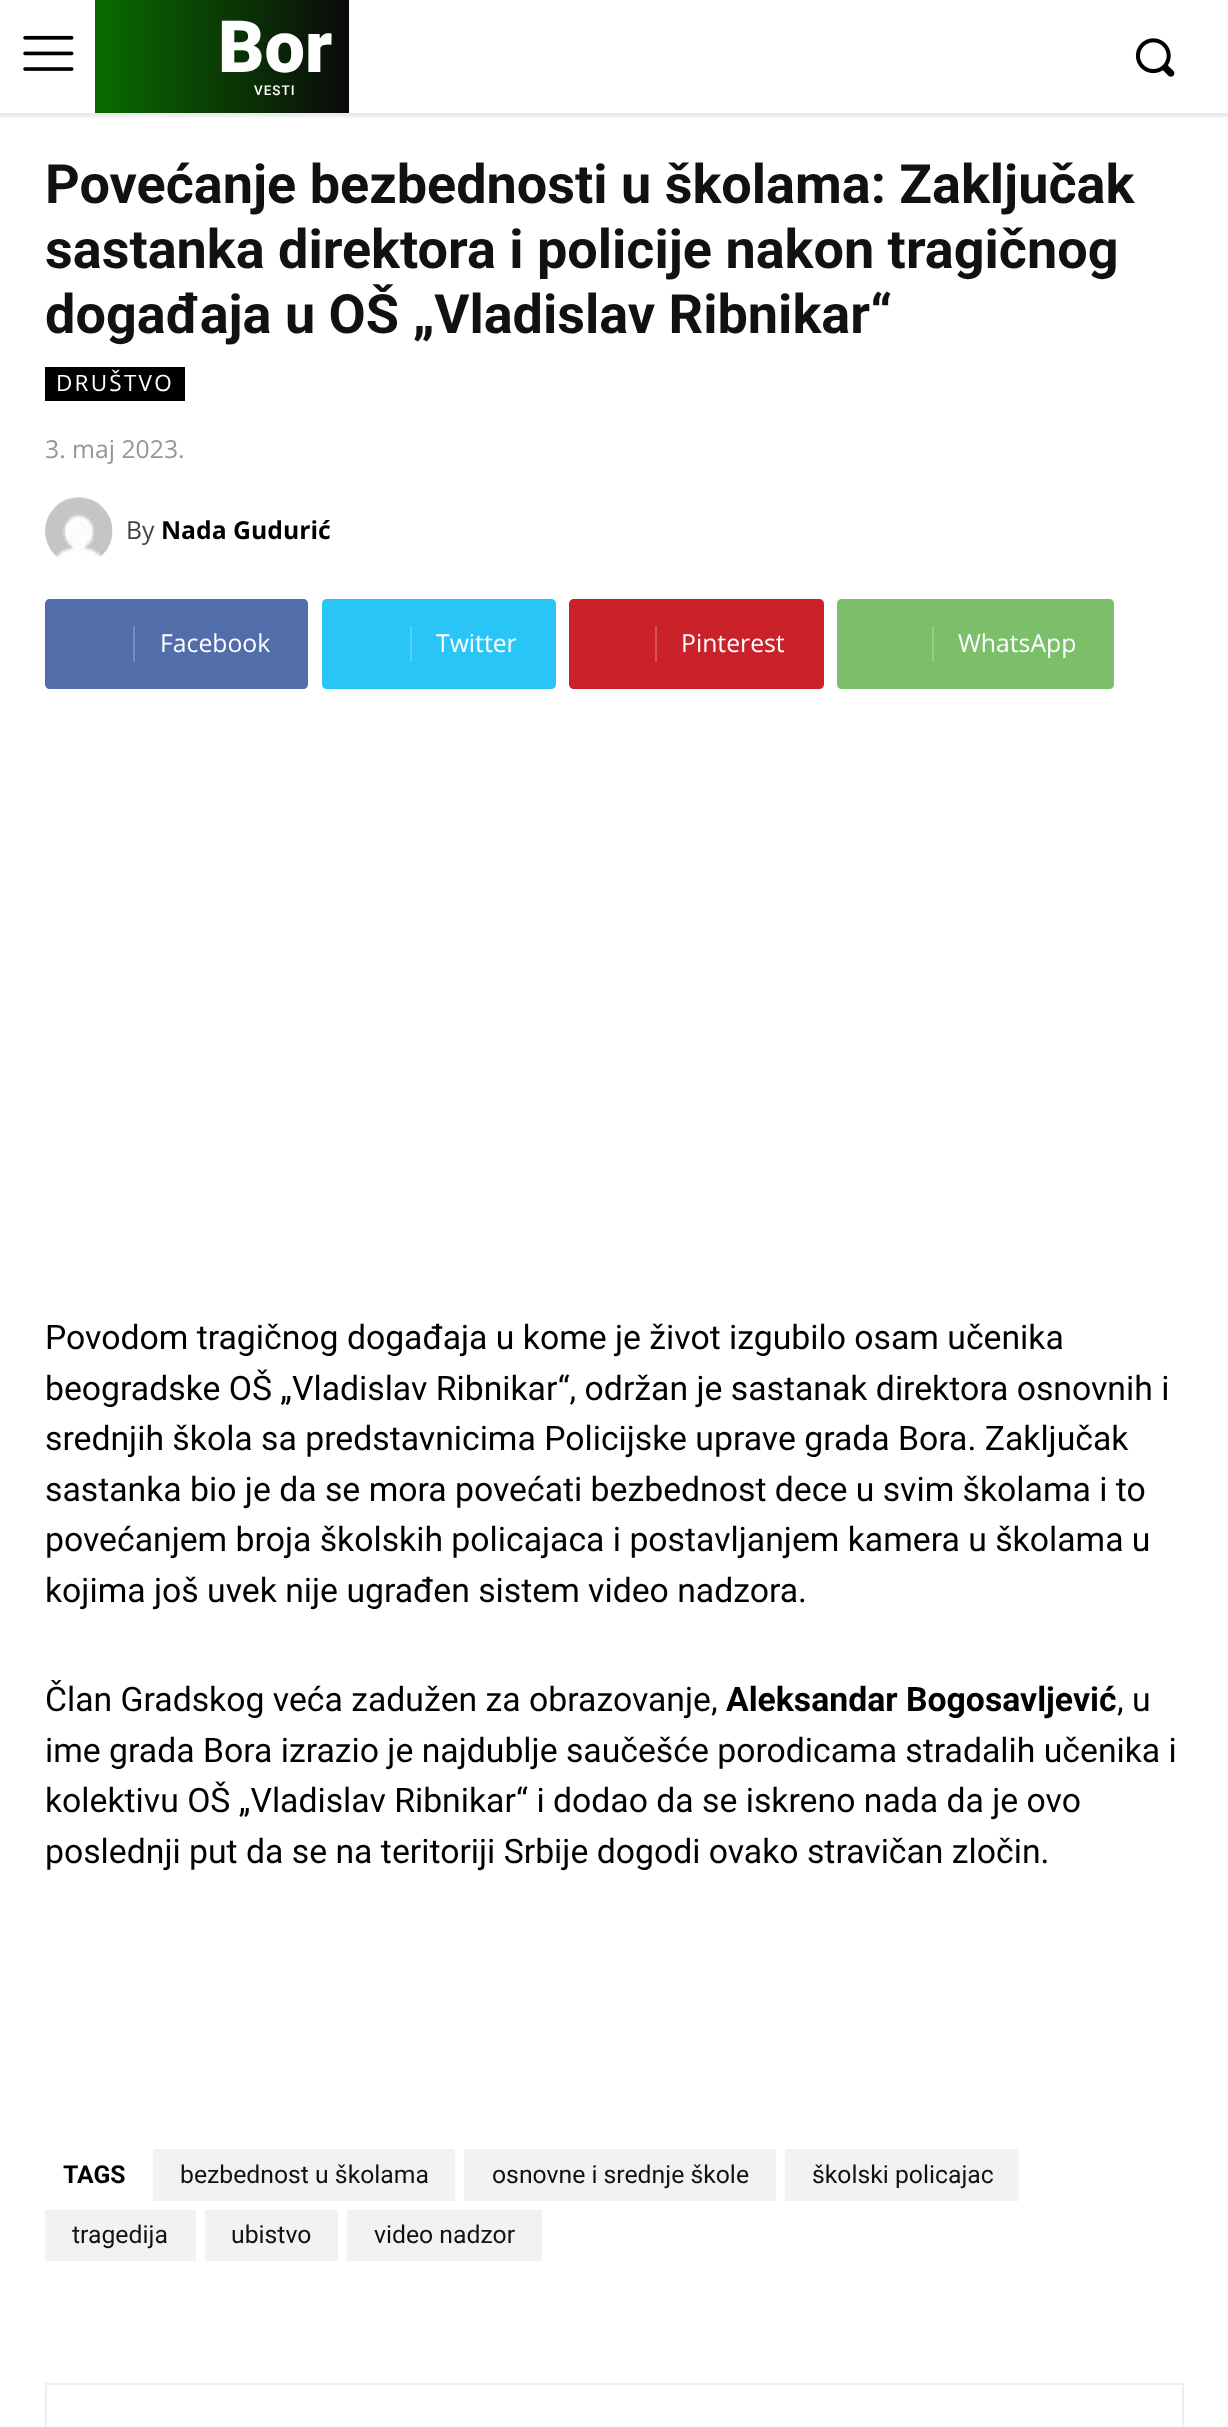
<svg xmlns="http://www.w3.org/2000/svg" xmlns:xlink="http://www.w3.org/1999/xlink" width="1228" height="2427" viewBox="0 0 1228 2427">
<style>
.cls-1{font:900 72px Roboto;fill:#ffffff}
.cls-2{font:500 13.5px Roboto;letter-spacing:1px;fill:#ffffff}
.cls-3{font:bold 54px Roboto;fill:#111111}
.cls-4{font:22.5px Open Sans;letter-spacing:2.25px;fill:#ffffff}
.cls-5{font:24.75px Open Sans;fill:#969696}
.cls-6{font:24.75px Open Sans;fill:#444444}
.cls-7{font:bold 24.75px Open Sans;fill:#000000}
.cls-8{font:24.75px Open Sans;fill:#ffffff}
.cls-9{font:33.75px Roboto;fill:#000000}
.cls-10{font:bold 33.75px Roboto;fill:#000000}
.cls-11{font:bold 24.75px Roboto;fill:#000000}
.cls-12{font:24.75px Roboto;fill:#111111}
</style>
<defs>
<linearGradient id="g1" gradientUnits="userSpaceOnUse" x1="349" y1="56" x2="95" y2="56"><stop offset="0" stop-color="#0a0a0a"/><stop offset="1" stop-color="#0a6b00"/></linearGradient>
<clipPath id="clip1"><path d="M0 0H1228V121H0ZM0 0H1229V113H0Z" clip-rule="evenodd"/></clipPath>
</defs>
<rect width="100%" height="100%" fill="#ffffff"/>
<image xlink:href="image0.png" x="23" y="35" width="51" height="36"/>
<rect fill="url(#g1)" x="95" y="0" width="254" height="113"/>
<image xlink:href="image1.png" x="1135" y="38" width="40" height="39"/>
<g clip-path="url(#clip1)">
<rect fill="#000000" fill-opacity="0.08" filter="blur(1px)" x="-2" y="0" width="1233" height="117"/>
</g>
<rect fill="#000000" x="45" y="367" width="140" height="34"/>
<image xlink:href="image2.png" x="45" y="497" width="68" height="61"/>
<path fill="#516eab" d="M133 599H303C306 599 308 601 308 604V684C308 687 306 689 303 689H133Z"/>
<path fill="#516eab" d="M50 599H146V689H50C47 689 45 687 45 684V604C45 601 47 599 50 599Z"/>
<rect fill="#748bbc" x="133" y="626" width="2" height="36"/>
<path fill="#29c5f6" d="M410 599H551C554 599 556 601 556 604V684C556 687 554 689 551 689H410Z"/>
<path fill="#29c5f6" d="M327 599H423V689H327C324 689 322 687 322 684V604C322 601 324 599 327 599Z"/>
<rect fill="#54d1f8" x="410" y="626" width="2" height="36"/>
<path fill="#ca212a" d="M655 599H819C822 599 824 601 824 604V684C824 687 822 689 819 689H655Z"/>
<path fill="#ca212a" d="M574 599H668V689H574C571 689 569 687 569 684V604C569 601 571 599 574 599Z"/>
<rect fill="#d54d55" x="655" y="626" width="2" height="36"/>
<path fill="#7bbf6a" d="M932 599H1109C1112 599 1114 601 1114 604V684C1114 687 1112 689 1109 689H932Z"/>
<path fill="#7bbf6a" d="M842 599H945V689H842C839 689 837 687 837 684V604C837 601 839 599 842 599Z"/>
<rect fill="#95cc88" x="932" y="626" width="2" height="36"/>
<rect fill="#f2f2f2" x="153" y="2149" width="302" height="52"/>
<rect fill="#f2f2f2" x="464" y="2149" width="312" height="52"/>
<rect fill="#f2f2f2" x="785" y="2149" width="234" height="52"/>
<rect fill="#f2f2f2" x="45" y="2210" width="151" height="51"/>
<rect fill="#f2f2f2" x="205" y="2210" width="133" height="51"/>
<rect fill="#f2f2f2" x="347" y="2210" width="195" height="51"/>
<rect fill="none" stroke="#ededed" stroke-width="2" x="46" y="2384" width="1137" height="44"/>
<text class="cls-1" x="218" y="72">Bor</text>
<text class="cls-2" x="254" y="95">VESTI</text>
<text class="cls-3"><tspan x="45" y="203">Povećanje bezbednosti u školama: Zaključak</tspan><tspan x="45" y="268">sastanka direktora i policije nakon tragičnog</tspan><tspan x="45" y="333">događaja u OŠ „Vladislav Ribnikar“</tspan></text>
<text class="cls-4" x="56" y="391">DRUŠTVO</text>
<text class="cls-5" x="45" y="458">3. maj 2023.</text>
<text class="cls-6" x="126" y="539">By</text>
<text class="cls-7" x="161" y="539">Nada Gudurić</text>
<text class="cls-8" x="160" y="652">Facebook</text>
<text class="cls-8" x="436" y="652">Twitter</text>
<text class="cls-8" x="681" y="652">Pinterest</text>
<text class="cls-8" x="958" y="652">WhatsApp</text>
<text class="cls-9"><tspan x="45" y="1349">Povodom tragičnog događaja u kome je život izgubilo osam učenika</tspan><tspan x="45" y="1400">beogradske OŠ „Vladislav Ribnikar“, održan je sastanak direktora osnovnih i</tspan><tspan x="45" y="1450">srednjih škola sa predstavnicima Policijske uprave grada Bora. Zaključak</tspan><tspan x="45" y="1501">sastanka bio je da se mora povećati bezbednost dece u svim školama i to</tspan><tspan x="45" y="1551">povećanjem broja školskih policajaca i postavljanjem kamera u školama u</tspan><tspan x="45" y="1602">kojima još uvek nije ugrađen sistem video nadzora.</tspan></text>
<text class="cls-9" x="45" y="1711">Član Gradskog veća zadužen za obrazovanje,</text>
<text class="cls-10" x="726" y="1711">Aleksandar Bogosavljević</text>
<text class="cls-9" x="1117" y="1711">, u</text>
<text class="cls-9"><tspan x="45" y="1762">ime grada Bora izrazio je najdublje saučešće porodicama stradalih učenika i</tspan><tspan x="45" y="1812">kolektivu OŠ „Vladislav Ribnikar“ i dodao da se iskreno nada da je ovo</tspan><tspan x="45" y="1863">poslednji put da se na teritoriji Srbije dogodi ovako stravičan zločin.</tspan></text>
<text class="cls-11" x="63" y="2183">TAGS</text>
<text class="cls-12" x="180" y="2183">bezbednost u školama</text>
<text class="cls-12" x="492" y="2183">osnovne i srednje škole</text>
<text class="cls-12" x="812" y="2183">školski policajac</text>
<text class="cls-12" x="72" y="2243">tragedija</text>
<text class="cls-12" x="231" y="2243">ubistvo</text>
<text class="cls-12" x="374" y="2243">video nadzor</text>
</svg>
